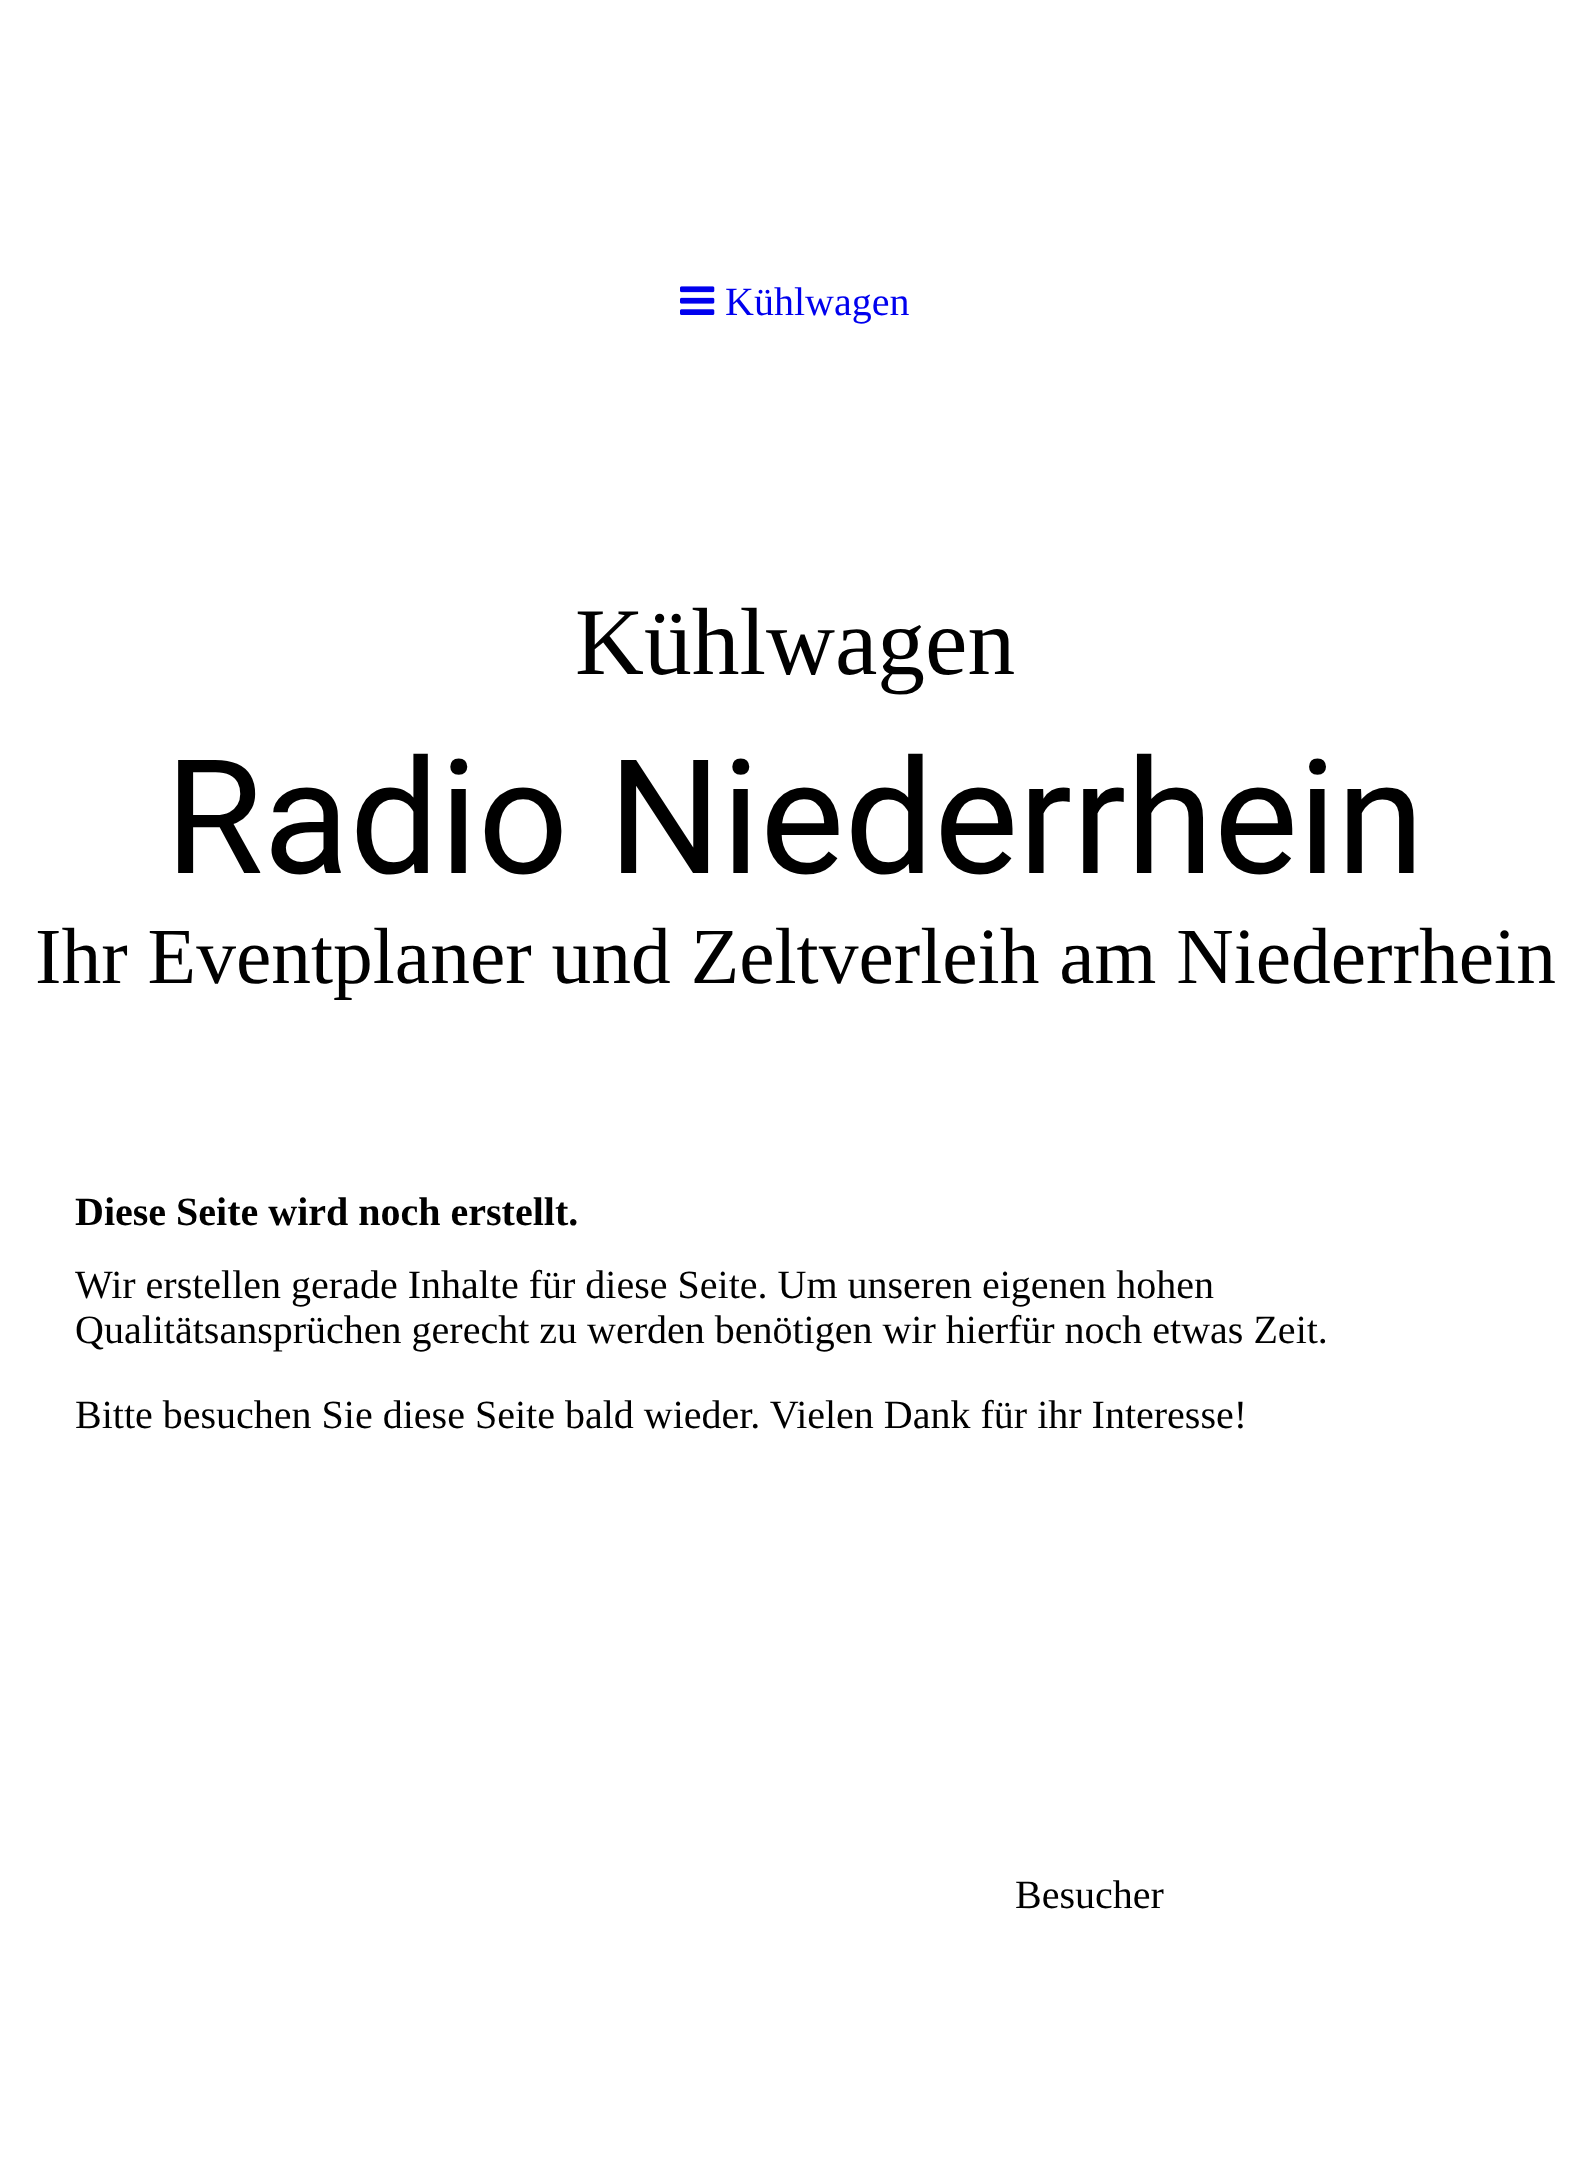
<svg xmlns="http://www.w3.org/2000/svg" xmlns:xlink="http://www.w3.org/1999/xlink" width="1590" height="2161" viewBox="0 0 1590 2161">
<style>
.cls-1{font:40px Liberation Serif;fill:#0000ee}
.cls-2{font:95.5px Liberation Serif;fill:#000000}
.cls-3{font:159px Roboto;fill:#000000}
.cls-4{font:79.5px Liberation Serif;fill:#000000}
.cls-5{font:bold 40px Liberation Serif;fill:#000000}
.cls-6{font:40px Liberation Serif;fill:#000000}
</style>
<rect width="100%" height="100%" fill="#ffffff"/>
<image xlink:href="image0.png" x="680" y="286" width="35" height="29"/>
<text class="cls-1" x="725" y="315">Kühlwagen</text>
<text class="cls-2" x="575" y="674">Kühlwagen</text>
<text class="cls-3" x="165" y="873">Radio Niederrhein</text>
<text class="cls-4" x="35" y="983">Ihr Eventplaner und Zeltverleih am Niederrhein</text>
<text class="cls-5" x="75" y="1225">Diese Seite wird noch erstellt.</text>
<text class="cls-6"><tspan x="75" y="1298">Wir erstellen gerade Inhalte für diese Seite. Um unseren eigenen hohen</tspan><tspan x="75" y="1343">Qualitätsansprüchen gerecht zu werden benötigen wir hierfür noch etwas Zeit.</tspan></text>
<text class="cls-6" x="75" y="1428">Bitte besuchen Sie diese Seite bald wieder. Vielen Dank für ihr Interesse!</text>
<text class="cls-6" x="1015" y="1908">Besucher</text>
</svg>
